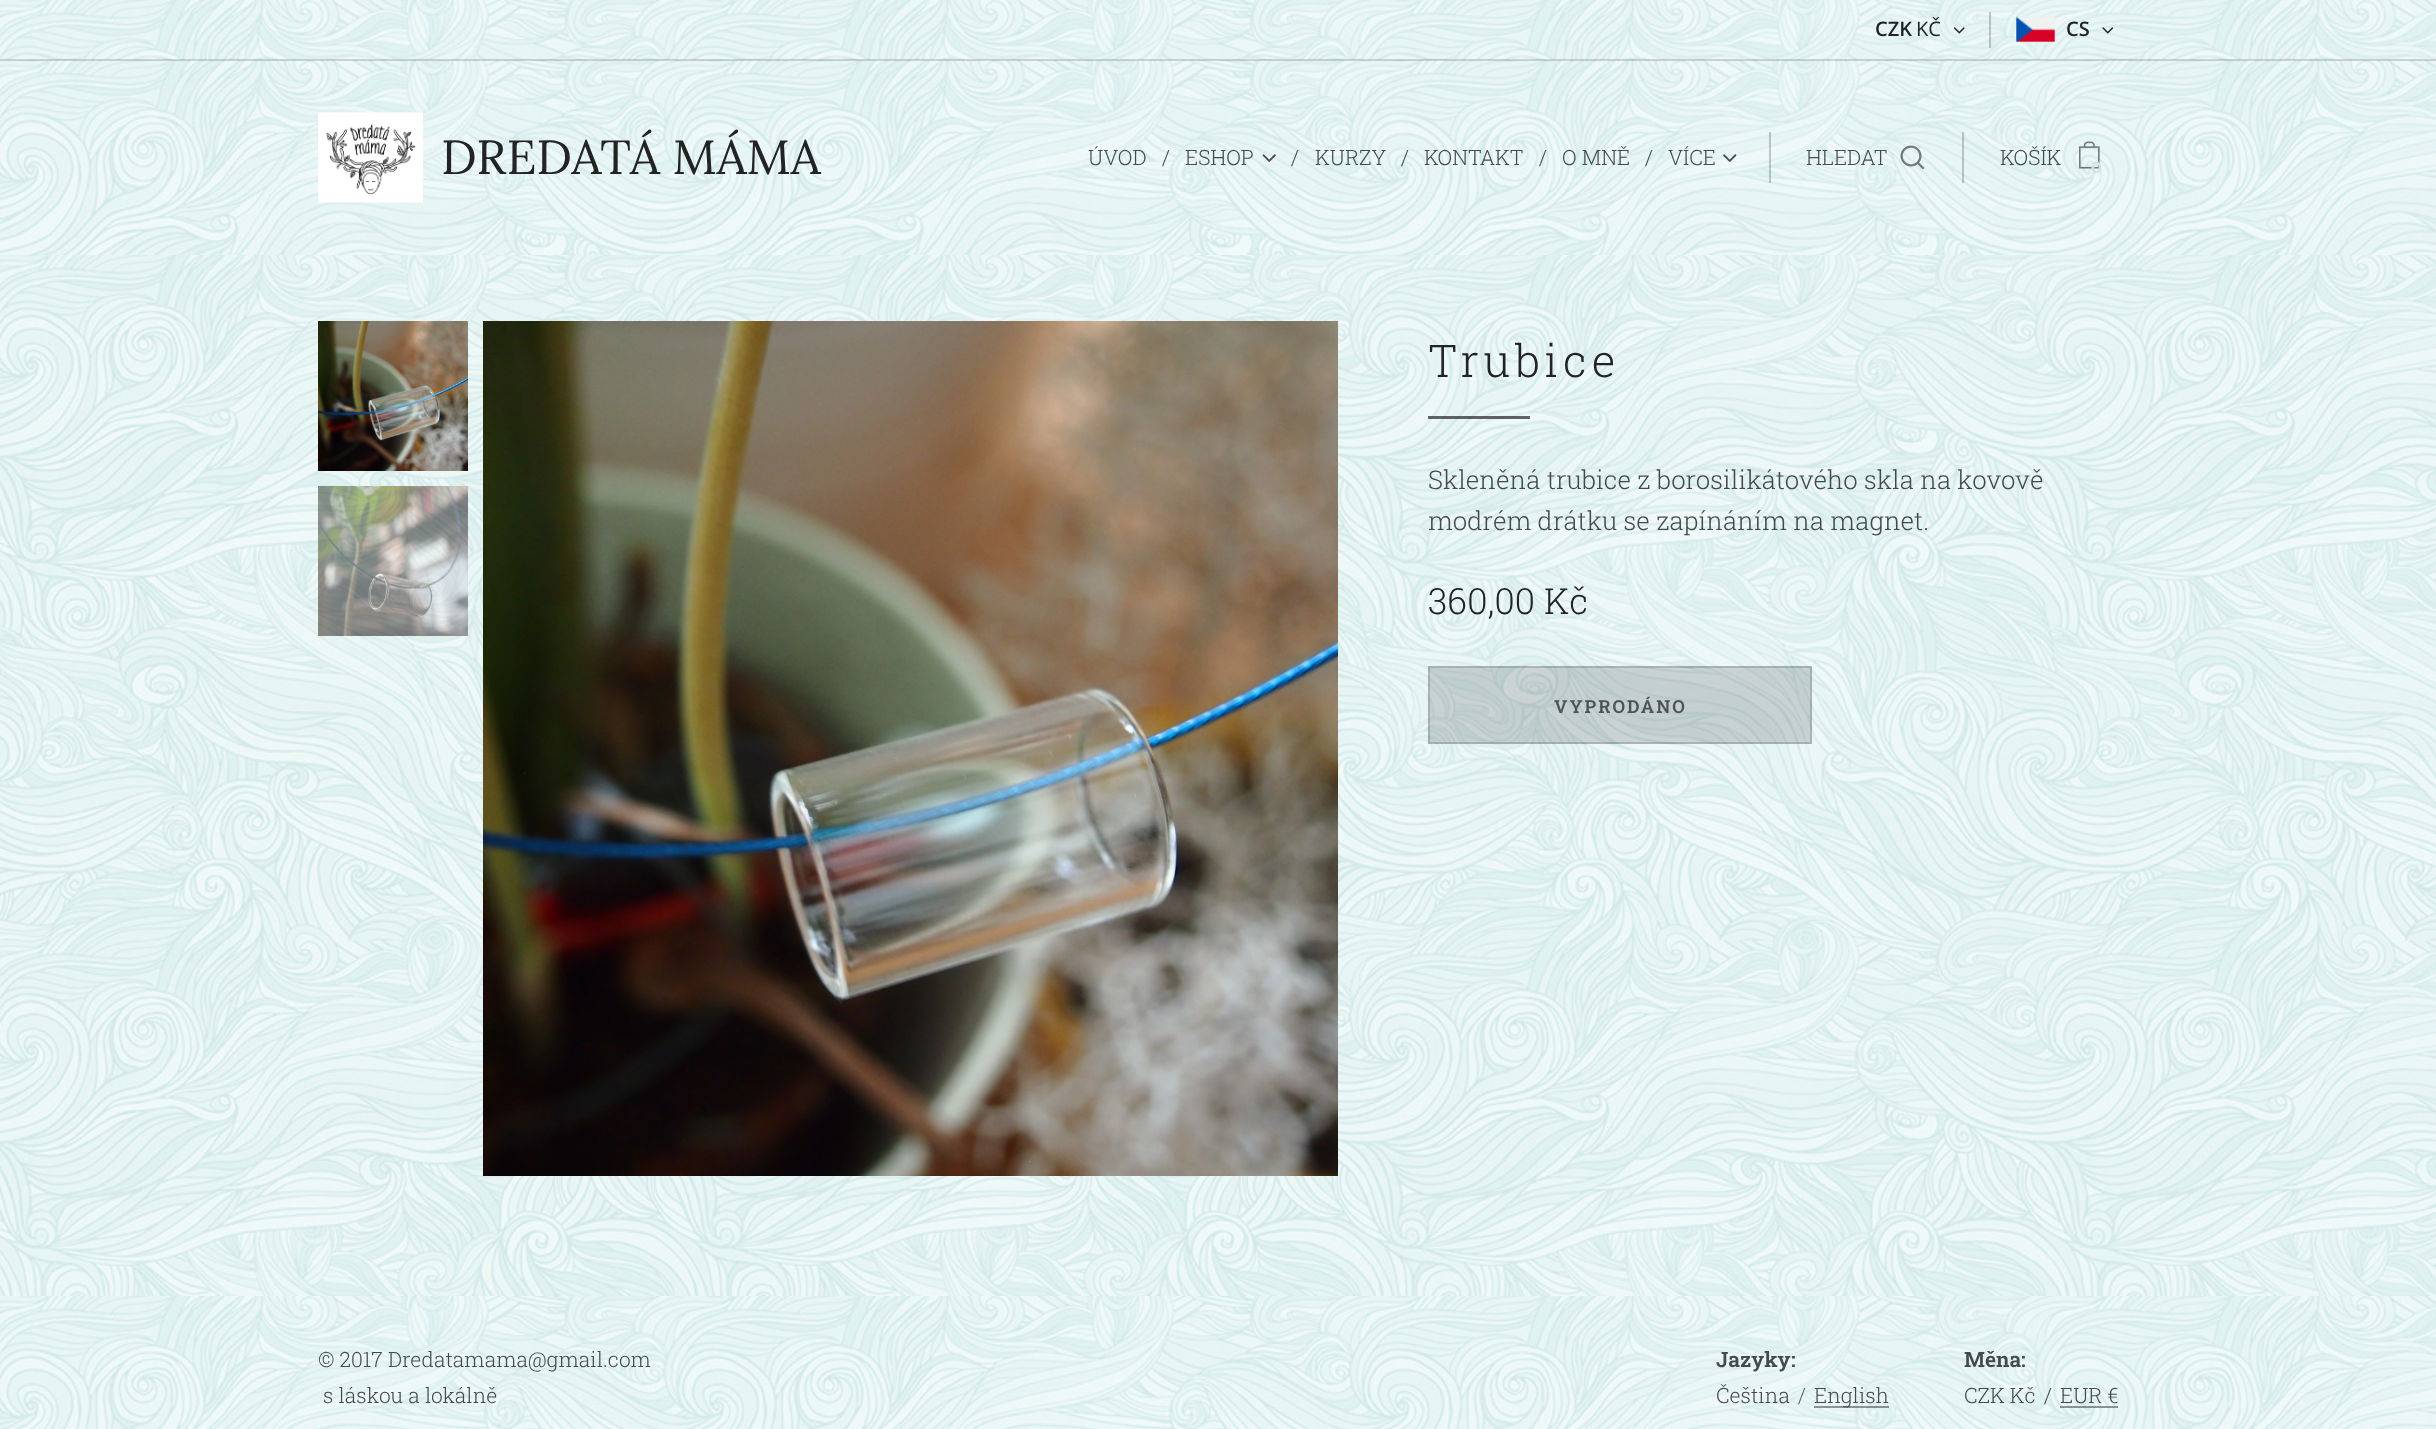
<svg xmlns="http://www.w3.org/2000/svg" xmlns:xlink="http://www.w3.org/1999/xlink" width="2436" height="1429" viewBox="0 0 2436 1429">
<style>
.cls-1{font:600 20px Open Sans;fill:#222424}
.cls-2{font:20px Open Sans;fill:#222424}
.cls-3{font:48px Lora;fill:#222424}
.cls-4{font:300 21px Roboto Slab;fill:#444949}
.cls-5{font:bold 16px Montserrat;fill:#d4e3e2}
.cls-6{font:300 45px Roboto Slab;letter-spacing:4.75px;fill:#222424}
.cls-7{font:300 25.8px Roboto Slab;fill:#444949}
.cls-8{font:300 36px Roboto Slab;fill:#222424}
.cls-9{font:600 18px Roboto Slab;letter-spacing:2px;fill:#4d5352}
.cls-10{font:600 21px Roboto Slab;fill:#444949}
.cls-11{font:300 21px Roboto Slab;fill:#5c6161}
</style>
<rect width="100%" height="100%" fill="#ffffff"/>
<image xlink:href="image0.png" x="0" y="0" width="2436" height="60"/>
<image xlink:href="image1.png" x="1953" y="27" width="12" height="7"/>
<rect fill="#000000" fill-opacity="0.2" x="1989" y="12" width="2" height="36"/>
<image xlink:href="image2.png" x="2016" y="16" width="39" height="26"/>
<image xlink:href="image3.png" x="2102" y="27" width="12" height="7"/>
<image xlink:href="image4.png" x="0" y="60" width="2436" height="195"/>
<rect fill="#000000" fill-opacity="0.15" x="0" y="59" width="2436" height="2"/>
<image xlink:href="image5.png" x="318" y="112" width="105" height="91"/>
<image xlink:href="image6.png" x="1262" y="154" width="14" height="8"/>
<image xlink:href="image7.png" x="1723" y="154" width="14" height="8"/>
<rect fill="#000000" fill-opacity="0.2" x="1769" y="132" width="2" height="51"/>
<image xlink:href="image8.png" x="1900" y="145" width="25" height="25"/>
<rect fill="#000000" fill-opacity="0.2" x="1962" y="132" width="2" height="51"/>
<image xlink:href="image9.png" x="2079" y="141" width="21" height="28"/>
<image xlink:href="image10.png" x="0" y="255" width="2436" height="1041"/>
<image xlink:href="image11.png" x="318" y="321" width="150" height="150"/>
<image xlink:href="image12.png" x="318" y="486" width="150" height="150"/>
<image xlink:href="image13.png" x="483" y="321" width="855" height="855"/>
<rect fill="#000000" fill-opacity="0.6" x="1428" y="416" width="102" height="3"/>
<rect fill="#000000" fill-opacity="0.15" x="1428" y="666" width="384" height="78"/>
<rect fill="none" stroke="#000000" stroke-opacity="0.15" stroke-width="2" x="1429" y="667" width="382" height="76"/>
<image xlink:href="image14.png" x="0" y="1296" width="2436" height="133"/>
<rect fill="#000000" fill-opacity="0.4" x="1814" y="1406" width="75" height="2"/>
<rect fill="#000000" fill-opacity="0.4" x="2060" y="1406" width="58" height="2"/>
<text class="cls-1" x="1875" y="36">CZK</text>
<text class="cls-2" x="1916" y="36">KČ</text>
<text class="cls-1" x="2066" y="36">CS</text>
<text class="cls-3" x="441" y="174">DREDATÁ MÁMA</text>
<text class="cls-4" x="1088" y="165">ÚVOD</text>
<text class="cls-4" x="1162" y="165">/</text>
<text class="cls-4" x="1185" y="165">ESHOP</text>
<text class="cls-4" x="1291" y="165">/</text>
<text class="cls-4" x="1315" y="165">KURZY</text>
<text class="cls-4" x="1401" y="165">/</text>
<text class="cls-4" x="1424" y="165">KONTAKT</text>
<text class="cls-4" x="1539" y="165">/</text>
<text class="cls-4" x="1562" y="165">O MNĚ</text>
<text class="cls-4" x="1645" y="165">/</text>
<text class="cls-4" x="1668" y="165">VÍCE</text>
<text class="cls-4" x="1806" y="165">HLEDAT</text>
<text class="cls-4" x="2000" y="165">KOŠÍK</text>
<text class="cls-5" x="2091" y="173">0</text>
<text class="cls-6" x="1428" y="377">Trubice</text>
<text class="cls-7"><tspan x="1428" y="489">Skleněná trubice z borosilikátového skla na kovově</tspan><tspan x="1428" y="530">modrém drátku se zapínáním na magnet.</tspan></text>
<text class="cls-8" x="1428" y="614">360,00</text>
<text class="cls-8" x="1544" y="614">Kč</text>
<text class="cls-9" x="1554" y="713">VYPRODÁNO</text>
<text class="cls-4" x="318" y="1367">© 2017 Dredatamama@gmail.com</text>
<text class="cls-4" x="323" y="1403">s láskou a lokálně</text>
<text class="cls-10" x="1716" y="1367">Jazyky</text>
<text class="cls-10" x="1791" y="1367">:</text>
<text class="cls-4" x="1716" y="1403">Čeština</text>
<text class="cls-11" x="1798" y="1403">/</text>
<text class="cls-4" x="1814" y="1403">English</text>
<text class="cls-10" x="1964" y="1367">Měna</text>
<text class="cls-10" x="2021" y="1367">:</text>
<text class="cls-4" x="1964" y="1403">CZK Kč</text>
<text class="cls-4" x="2044" y="1403">/</text>
<text class="cls-4" x="2060" y="1403">EUR €</text>
</svg>
